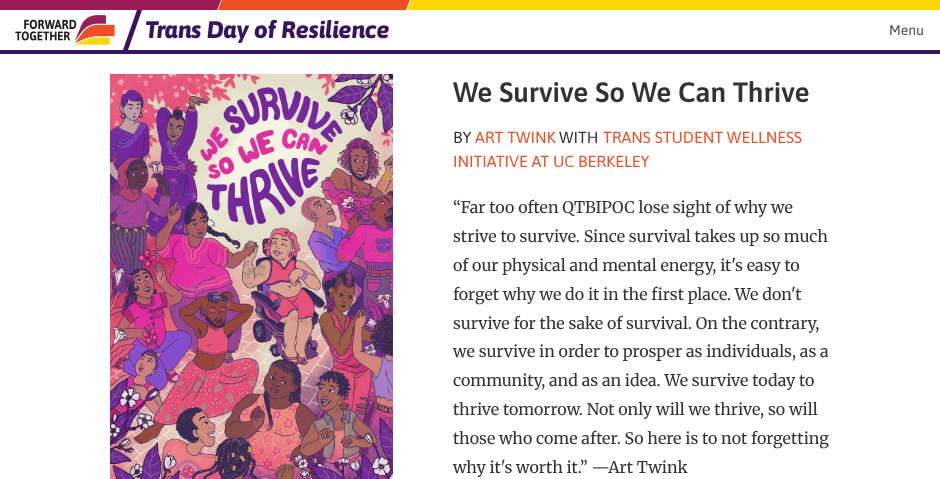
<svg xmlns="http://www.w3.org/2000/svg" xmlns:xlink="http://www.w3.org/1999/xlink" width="940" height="479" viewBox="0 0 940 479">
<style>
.cls-1{font:italic 800 24px Asap;fill:#381460}
.cls-2{font:14px Asap;fill:#4d4d4f}
.cls-3{font:600 28px Asap;fill:#333333}
.cls-4{font:16px Asap;fill:#333333}
.cls-5{font:16px Asap;fill:#f04e23}
.cls-6{font:16px Merriweather;fill:#333333}
</style>
<rect width="100%" height="100%" fill="#ffffff"/>
<rect fill="#381460" x="0" y="50" width="940" height="4"/>
<rect fill="#ffd600" x="218" y="0" width="722" height="10"/>
<path fill="#9b1c56" d="M-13 0H222L218 10H-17Z"/>
<path fill="#ffffff" d="M221 0H222L218 10H217Z"/>
<path fill="#f04e23" d="M222 0H410L406 10H218Z"/>
<path fill="#ffd600" d="M410 0H927L923 10H406Z"/>
<path fill="#ffffff" d="M410 0H411L407 10H406Z"/>
<image xlink:href="image0.png" x="15" y="15" width="100" height="30"/>
<path fill="#381460" d="M137 10H142L128 50H123Z"/>
<image xlink:href="image1.png" x="110" y="74" width="283" height="405"/>
<text class="cls-1" x="145" y="38">Trans Day of Resilience</text>
<text class="cls-2" x="889" y="35">Menu</text>
<text class="cls-3" x="453" y="102">We Survive So We Can Thrive</text>
<text class="cls-4" x="453" y="143">BY</text>
<text class="cls-5" x="475" y="143">ART TWINK</text>
<text class="cls-4" x="559" y="143">WITH</text>
<text class="cls-5" x="603" y="143">TRANS STUDENT WELLNESS</text>
<text class="cls-5" x="453" y="167">INITIATIVE AT UC BERKELEY</text>
<text class="cls-6"><tspan x="453" y="213">“Far too often QTBIPOC lose sight of why we</tspan><tspan x="453" y="242">strive to survive. Since survival takes up so much</tspan><tspan x="453" y="271">of our physical and mental energy, it's easy to</tspan><tspan x="453" y="300">forget why we do it in the first place. We don't</tspan><tspan x="453" y="329">survive for the sake of survival. On the contrary,</tspan><tspan x="453" y="357">we survive in order to prosper as individuals, as a</tspan><tspan x="453" y="386">community, and as an idea. We survive today to</tspan><tspan x="453" y="415">thrive tomorrow. Not only will we thrive, so will</tspan><tspan x="453" y="444">those who come after. So here is to not forgetting</tspan><tspan x="453" y="473">why it's worth it.” —Art Twink</tspan></text>
</svg>
